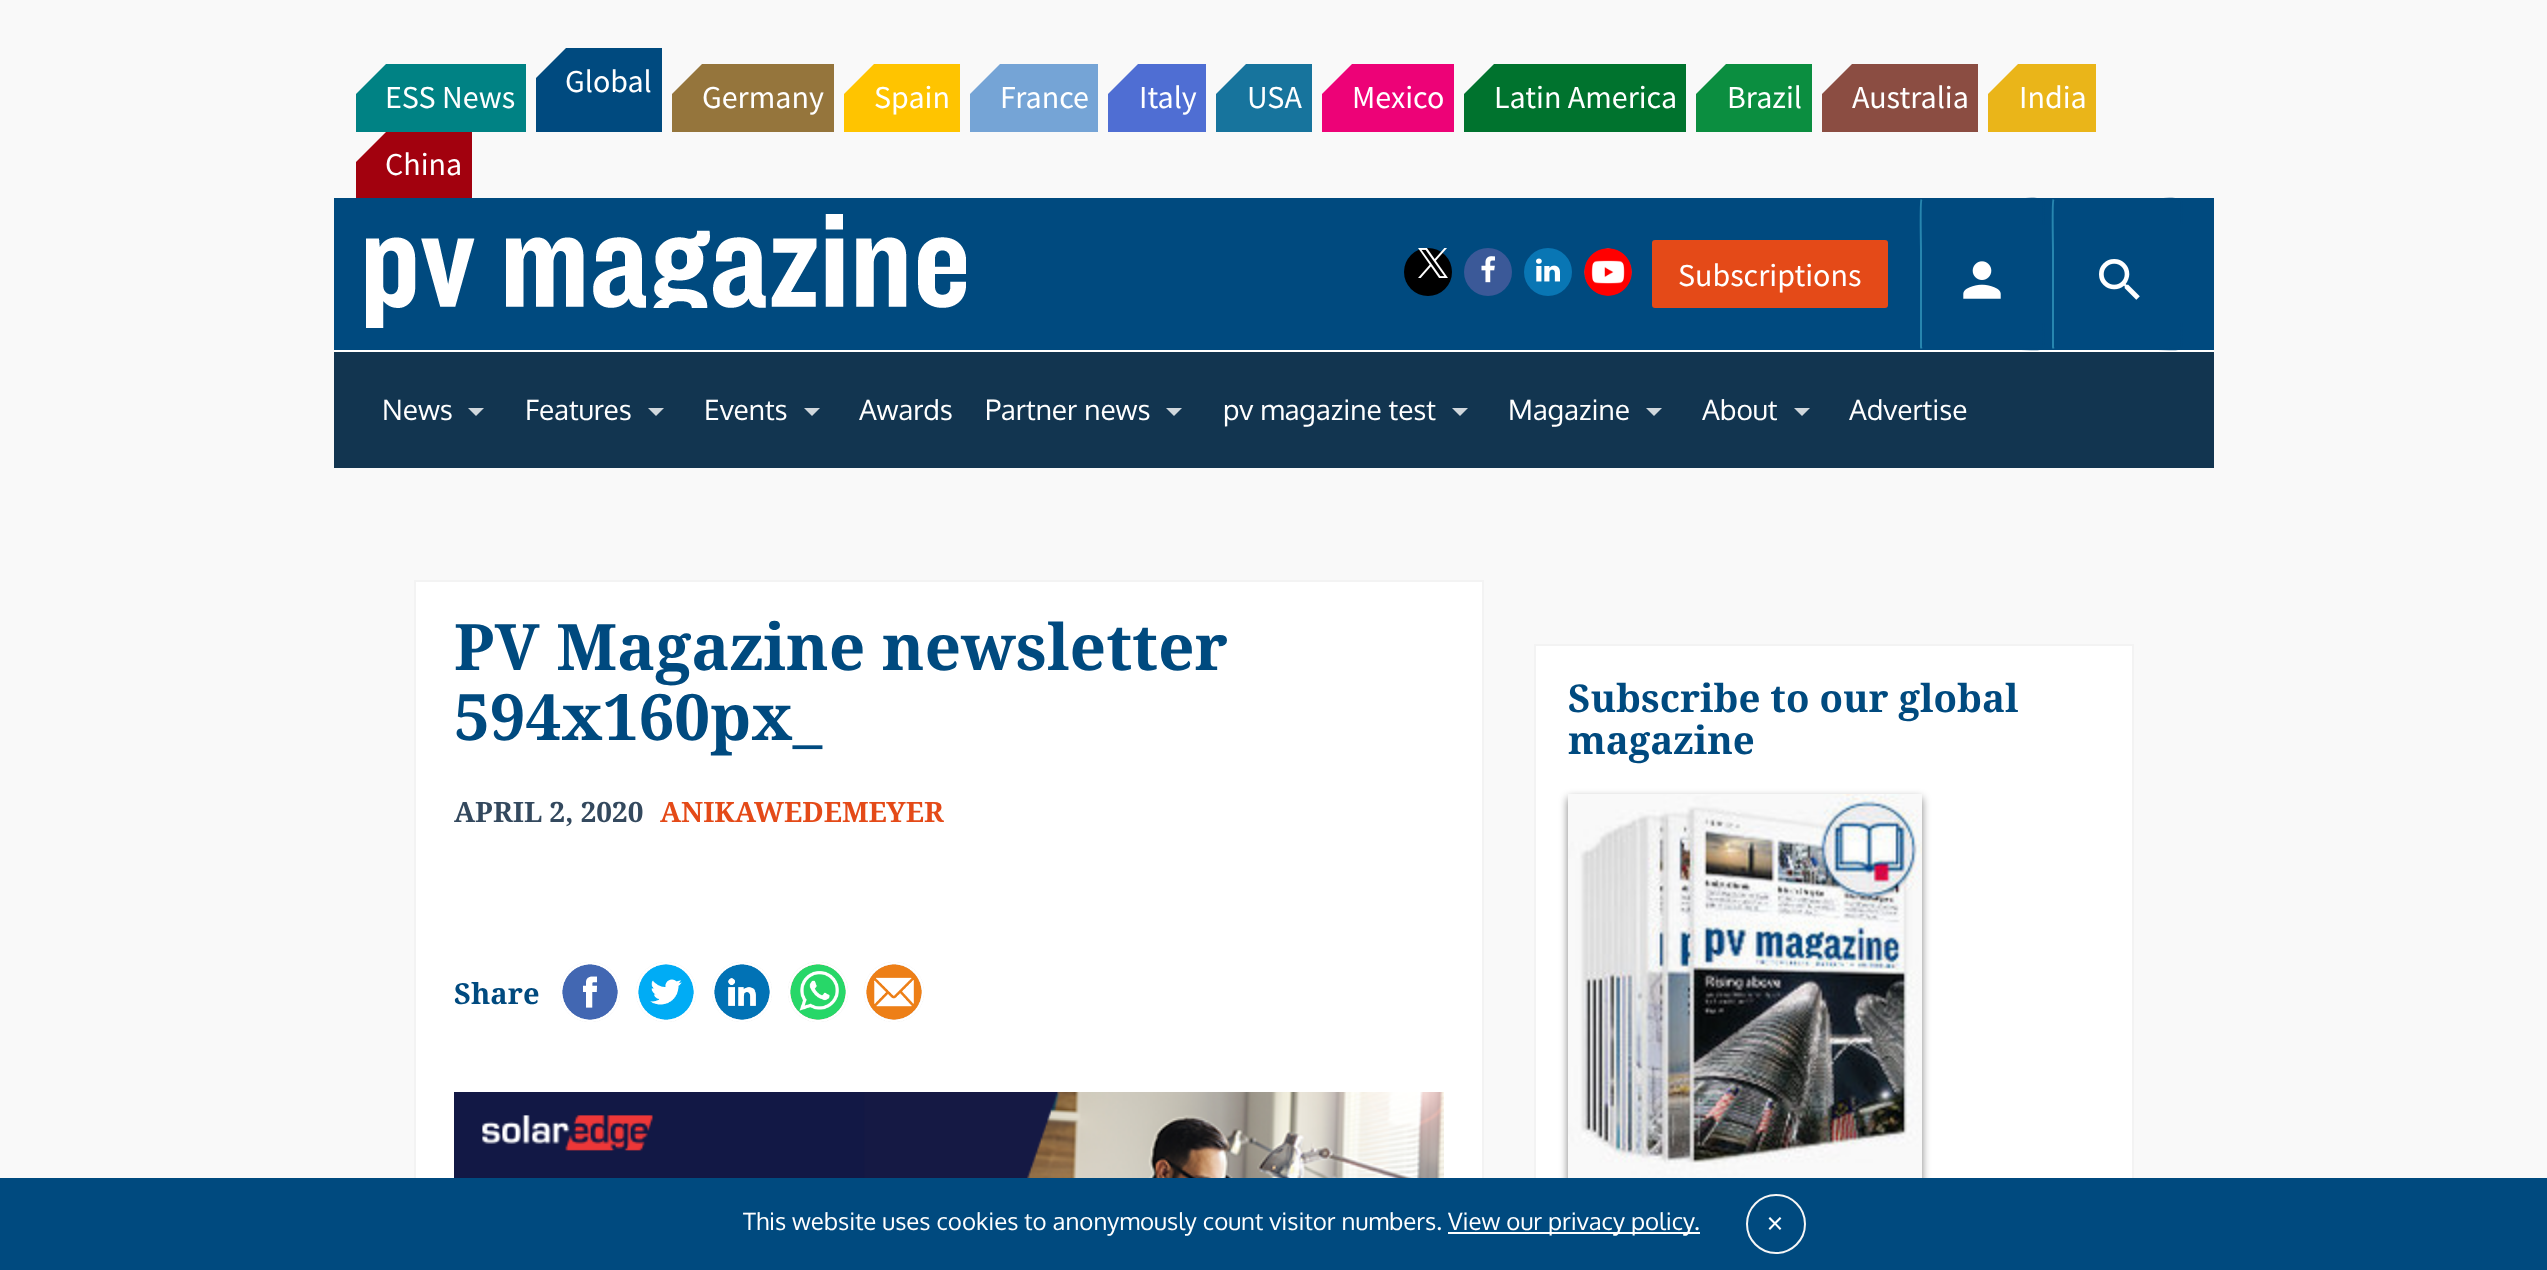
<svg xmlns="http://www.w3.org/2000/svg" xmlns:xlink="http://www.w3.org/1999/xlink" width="2547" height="1270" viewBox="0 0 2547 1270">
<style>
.cls-1{font:32px Source Sans Pro;fill:#ffffff}
.cls-2{font:28px Oxygen;fill:#ffffff}
.cls-3{font:bold 64px Droid Serif;fill:#004a7f}
.cls-4{font:bold 28px Droid Serif;fill:#34495e}
.cls-5{font:bold 28px Droid Serif;fill:#e44a18}
.cls-6{font:bold 29px Droid Serif;fill:#004a7f}
.cls-7{font:bold 38.4px Droid Serif;fill:#004a7f}
.cls-8{font:24px Oxygen;fill:#ffffff}
</style>
<rect width="100%" height="100%" fill="#f9f9f9"/>
<rect fill="#004a7f" x="536" y="48" width="126" height="84"/>
<path fill="#f9f9f9" d="M536 78V48H566Z"/>
<rect fill="#008284" x="356" y="64" width="170" height="68"/>
<path fill="#f9f9f9" d="M356 94V64H386Z"/>
<rect fill="#95753c" x="672" y="64" width="162" height="68"/>
<path fill="#f9f9f9" d="M672 94V64H702Z"/>
<rect fill="#ffc400" x="844" y="64" width="116" height="68"/>
<path fill="#f9f9f9" d="M844 94V64H874Z"/>
<rect fill="#75a4d6" x="970" y="64" width="128" height="68"/>
<path fill="#f9f9f9" d="M970 94V64H1000Z"/>
<rect fill="#4f6ed3" x="1108" y="64" width="98" height="68"/>
<path fill="#f9f9f9" d="M1108 94V64H1138Z"/>
<rect fill="#17749d" x="1216" y="64" width="96" height="68"/>
<path fill="#f9f9f9" d="M1216 94V64H1246Z"/>
<rect fill="#ed0277" x="1322" y="64" width="132" height="68"/>
<path fill="#f9f9f9" d="M1322 94V64H1352Z"/>
<rect fill="#00732e" x="1464" y="64" width="222" height="68"/>
<path fill="#f9f9f9" d="M1464 94V64H1494Z"/>
<rect fill="#0b8e40" x="1696" y="64" width="116" height="68"/>
<path fill="#f9f9f9" d="M1696 94V64H1726Z"/>
<rect fill="#8b4d42" x="1822" y="64" width="156" height="68"/>
<path fill="#f9f9f9" d="M1822 94V64H1852Z"/>
<rect fill="#eab519" x="1988" y="64" width="108" height="68"/>
<path fill="#f9f9f9" d="M1988 94V64H2018Z"/>
<rect fill="#a2010e" x="356" y="132" width="116" height="66"/>
<path fill="#f9f9f9" d="M356 162V132H386Z"/>
<rect fill="#004a7f" x="334" y="198" width="1880" height="152"/>
<rect fill="#ffffff" x="334" y="350" width="1880" height="2"/>
<image xlink:href="image0.png" x="366" y="214" width="600" height="114"/>
<circle fill="#000000" cx="1428" cy="272" r="24"/>
<image xlink:href="image1.png" x="1418" y="248" width="30" height="30"/>
<circle fill="#3b5998" cx="1488" cy="272" r="24"/>
<image xlink:href="image2.png" x="1481" y="256" width="14" height="27"/>
<circle fill="#0976b4" cx="1548" cy="272" r="24"/>
<image xlink:href="image3.png" x="1536" y="258" width="24" height="24"/>
<image xlink:href="image4.png" x="1584" y="248" width="48" height="48"/>
<rect fill="#e44a18" stroke="#e44a18" stroke-width="2" x="1653" y="241" width="234" height="66" rx="2"/>
<path fill="none" stroke="#004a7f" stroke-width="2" d="M1921.5 199.5L1923 199H2021C2050 199 2043 194 2043 225.5V322.5C2043 354 2050 349 2021 349H1923L1921.5 348.5"/>
<path fill="none" stroke="#2786af" stroke-width="2" d="M1921.5 348.5L1921 347V249.5C1921 246.5 1920 201.5 1921.5 199.5"/>
<image xlink:href="image5.png" x="1963" y="261" width="38" height="38"/>
<path fill="none" stroke="#004a7f" stroke-width="2" d="M2053.5 199.5L2055 199H2158C2188 199 2181 193.5 2181 225.5V322.5C2181 354.5 2188 349 2158 349H2055L2053.5 348.5"/>
<path fill="none" stroke="#2786af" stroke-width="2" d="M2053.5 348.5L2053 347V249.5C2053 246.5 2052 201.5 2053.5 199.5"/>
<image xlink:href="image6.png" x="2099" y="259" width="41" height="41"/>
<rect fill="#123550" x="334" y="352" width="1880" height="116"/>
<path fill="#d0d7dc" d="M468 408H484L476 416Z"/>
<path fill="#d0d7dc" d="M648 408H664L656 416Z"/>
<path fill="#d0d7dc" d="M804 408H820L812 416Z"/>
<path fill="#d0d7dc" d="M1166 408H1182L1174 416Z"/>
<path fill="#d0d7dc" d="M1452 408H1468L1460 416Z"/>
<path fill="#d0d7dc" d="M1646 408H1662L1654 416Z"/>
<path fill="#d0d7dc" d="M1794 408H1810L1802 416Z"/>
<rect fill="#ffffff" x="416" y="582" width="1066" height="596"/>
<rect fill="none" stroke="#f3f3f3" stroke-width="2" x="415" y="581" width="1068" height="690"/>
<image xlink:href="image7.png" x="560" y="962" width="60" height="60"/>
<image xlink:href="image8.png" x="636" y="962" width="60" height="60"/>
<image xlink:href="image9.png" x="712" y="962" width="60" height="60"/>
<image xlink:href="image10.png" x="788" y="962" width="60" height="60"/>
<image xlink:href="image11.png" x="864" y="962" width="60" height="60"/>
<image xlink:href="image12.png" x="454" y="1092" width="990" height="86"/>
<rect fill="#ffffff" x="1536" y="646" width="596" height="532"/>
<rect fill="none" stroke="#f3f3f3" stroke-width="2" x="1535" y="645" width="598" height="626"/>
<rect fill="#000000" fill-opacity="0.5" filter="blur(4px)" x="1568" y="798" width="354" height="414"/>
<image xlink:href="image13.png" x="1568" y="794" width="354" height="384"/>
<rect fill="#004a7f" x="0" y="1178" width="2547" height="92"/>
<rect fill="#ffffff" x="1448" y="1232" width="252" height="2"/>
<circle fill="none" stroke="#f6f6f6" stroke-width="2" cx="1776" cy="1224" r="29"/>
<text class="cls-1" x="565" y="92">Global</text>
<text class="cls-1" x="385" y="108">ESS News</text>
<text class="cls-1" x="702" y="108">Germany</text>
<text class="cls-1" x="874" y="108">Spain</text>
<text class="cls-1" x="1000" y="108">France</text>
<text class="cls-1" x="1139" y="108">Italy</text>
<text class="cls-1" x="1247" y="108">USA</text>
<text class="cls-1" x="1352" y="108">Mexico</text>
<text class="cls-1" x="1494" y="108">Latin America</text>
<text class="cls-1" x="1727" y="108">Brazil</text>
<text class="cls-1" x="1852" y="108">Australia</text>
<text class="cls-1" x="2019" y="108">India</text>
<text class="cls-1" x="385" y="175">China</text>
<text class="cls-1" x="1678" y="286">Subscriptions</text>
<text class="cls-2" x="382" y="420">News</text>
<text class="cls-2" x="525" y="420">Features</text>
<text class="cls-2" x="704" y="420">Events</text>
<text class="cls-2" x="859" y="420">Awards</text>
<text class="cls-2" x="985" y="420">Partner news</text>
<text class="cls-2" x="1223" y="420">pv magazine test</text>
<text class="cls-2" x="1508" y="420">Magazine</text>
<text class="cls-2" x="1702" y="420">About</text>
<text class="cls-2" x="1849" y="420">Advertise</text>
<text class="cls-3"><tspan x="454" y="670">PV Magazine newsletter</tspan><tspan x="454" y="740">594x160px_</tspan></text>
<text class="cls-4" x="454" y="822">APRIL 2, 2020</text>
<text class="cls-5" x="660" y="822">ANIKAWEDEMEYER</text>
<text class="cls-6" x="454" y="1004">Share</text>
<text class="cls-7"><tspan x="1568" y="712">Subscribe to our global</tspan><tspan x="1568" y="754">magazine</tspan></text>
<text class="cls-8" x="743" y="1230">This website uses cookies to anonymously count visitor numbers.</text>
<text class="cls-8" x="1448" y="1230">View our privacy policy.</text>
<text class="cls-1" x="1767" y="1234">×</text>
</svg>
